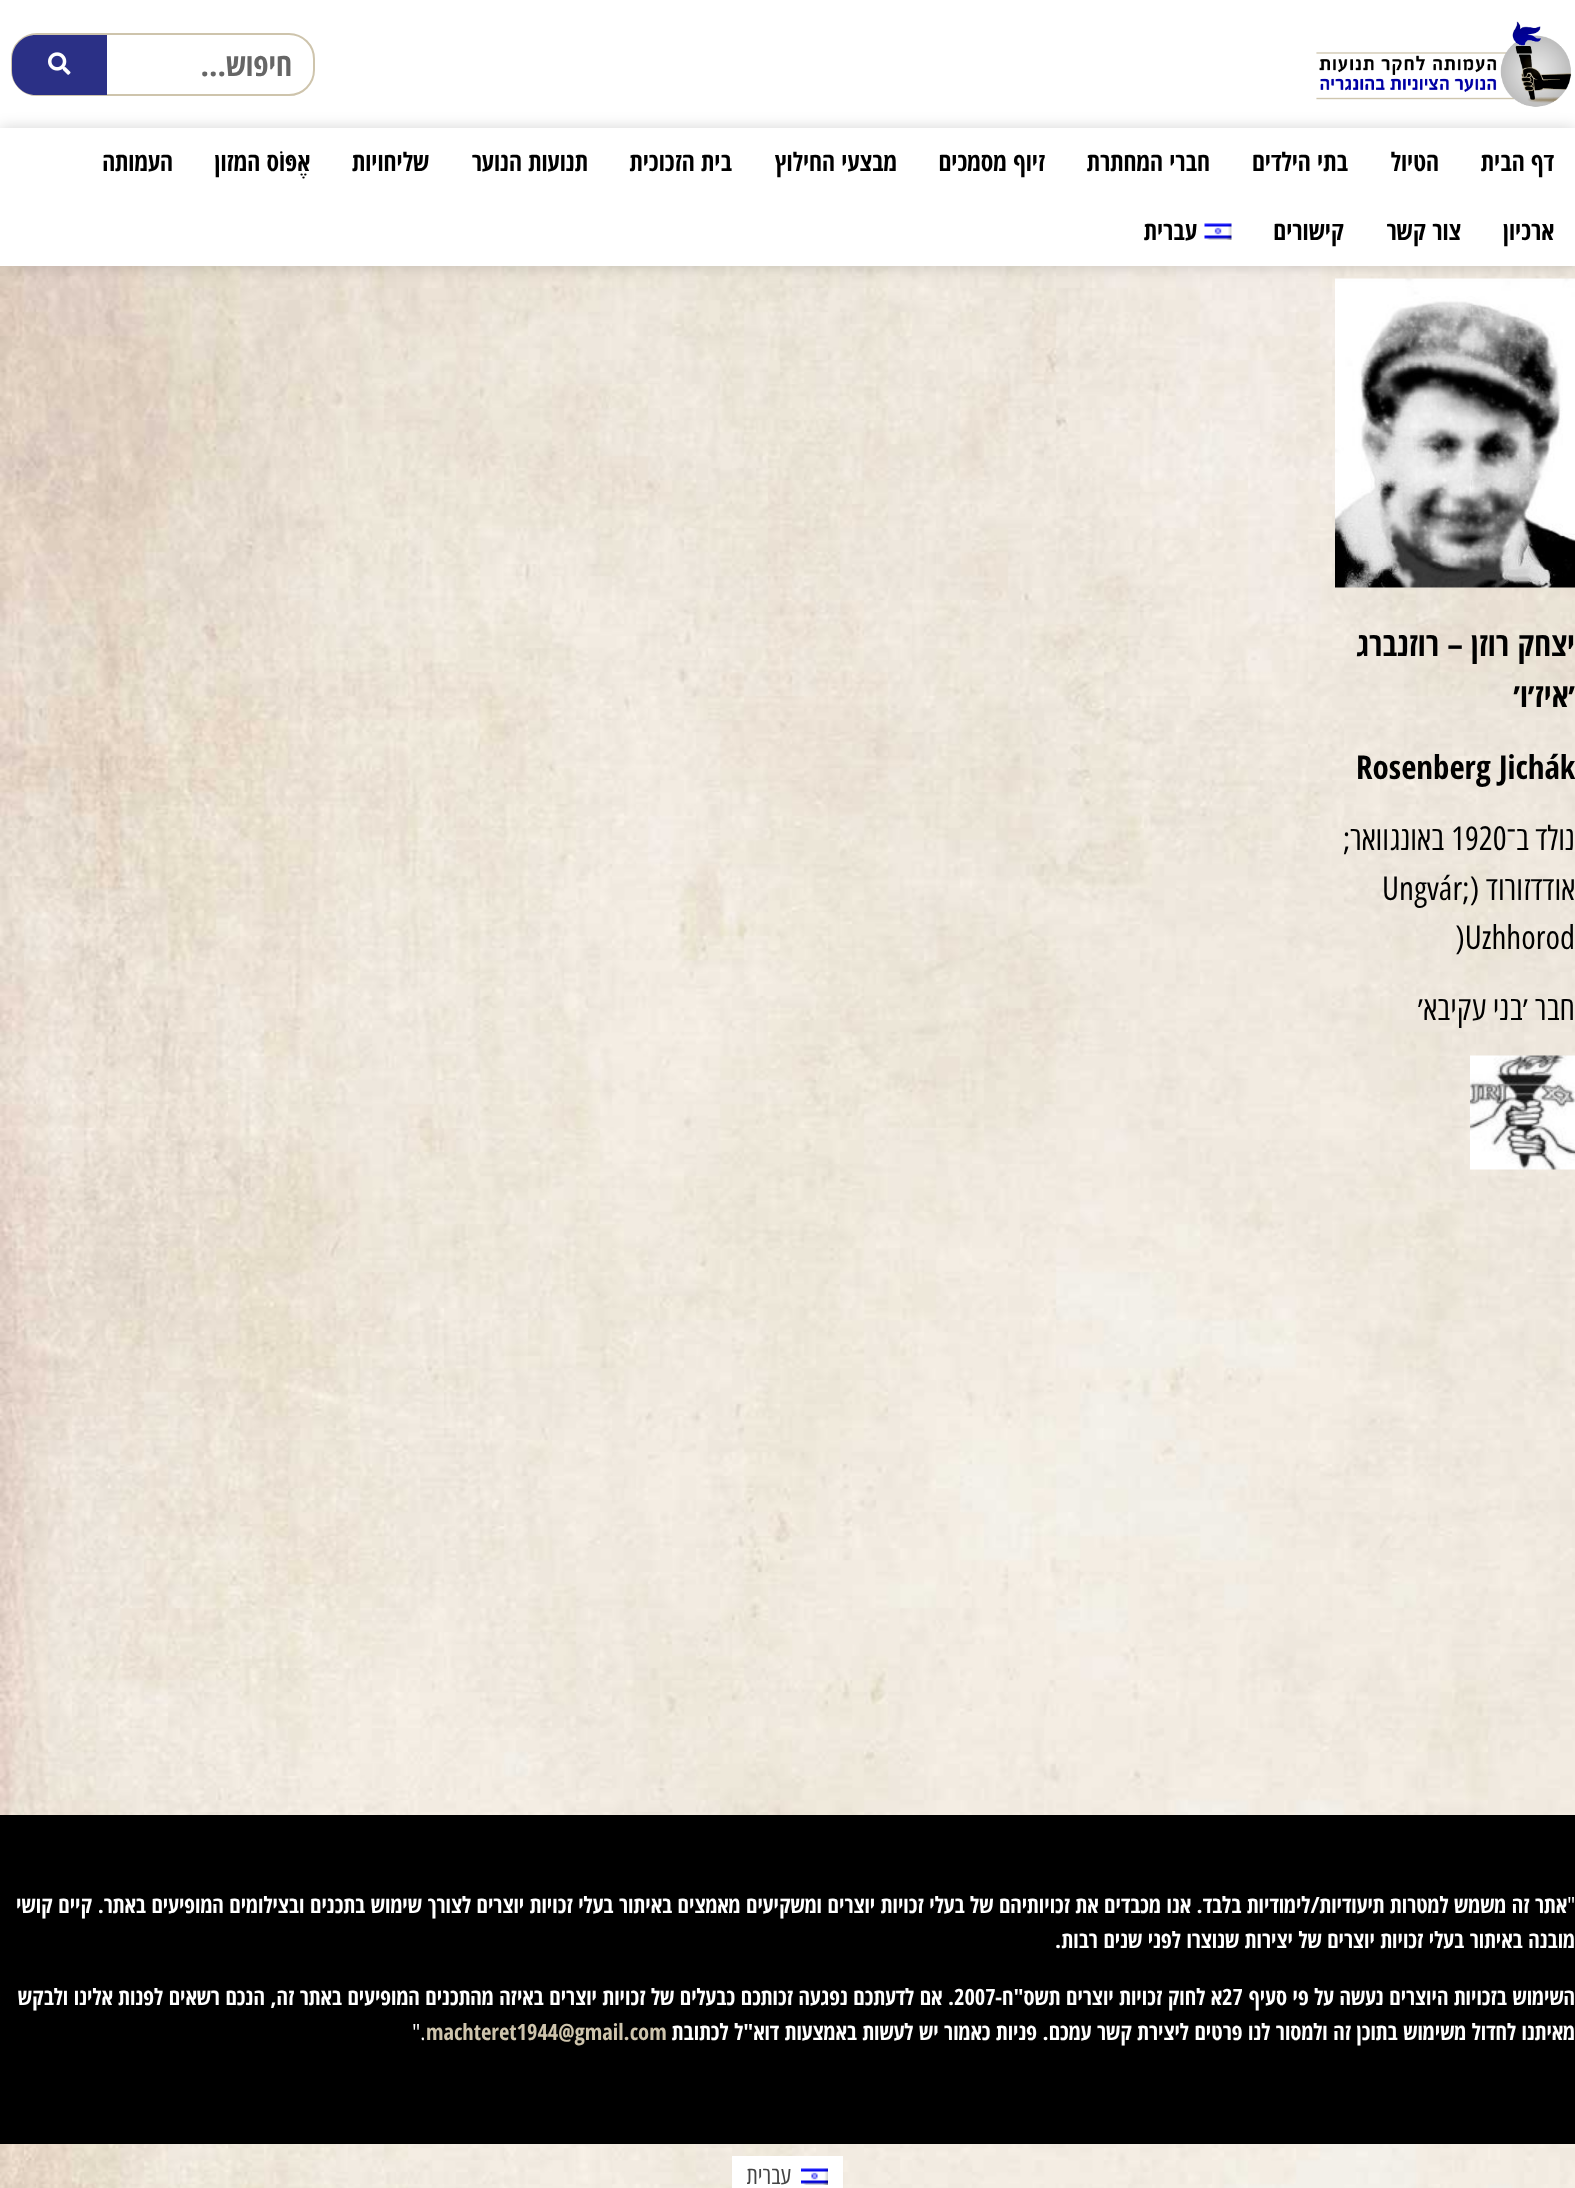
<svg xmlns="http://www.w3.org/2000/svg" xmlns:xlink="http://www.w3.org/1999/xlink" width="1575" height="2188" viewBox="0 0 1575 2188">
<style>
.cls-1{font:bold 31.5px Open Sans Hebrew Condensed;direction:rtl;fill:#666666}
.cls-2{font:bold 25.5px Open Sans Hebrew Condensed;direction:rtl;fill:#000000}
.cls-3{font:bold 33px Open Sans Hebrew Condensed;direction:rtl;fill:#000000}
.cls-4{font:bold 33px Open Sans Hebrew Condensed;fill:#000000}
.cls-5{font:33px Open Sans Hebrew Condensed;direction:rtl;fill:#000000}
.cls-6{font:33px Open Sans Hebrew Condensed;fill:#000000}
.cls-7{font:22.5px Open Sans Hebrew Condensed;fill:#ffffff}
.cls-8{font:bold 22.5px Open Sans Hebrew Condensed;direction:rtl;fill:#ffffff}
.cls-9{font:bold 22.5px Open Sans Hebrew Condensed;fill:#ffffff}
.cls-10{font:bold 22.5px Open Sans Hebrew Condensed;fill:#cec4ac}
.cls-11{font:24px Open Sans Hebrew Condensed;direction:rtl;fill:#444444}
</style>
<rect width="100%" height="100%" fill="#ffffff"/>
<image xlink:href="image0.png" x="0" y="266" width="1575" height="1922"/>
<image xlink:href="image1.png" x="1316" y="21" width="256" height="86"/>
<rect fill="none" stroke="#cec4ac" stroke-width="2" x="12" y="34" width="302" height="61" rx="25"/>
<path fill="#2b3086" d="M36 35H107V95H36C22.5 95 12 84.5 12 71V59C12 45.5 22.5 35 36 35Z"/>
<image xlink:href="image2.png" x="48" y="52" width="23" height="23"/>
<image xlink:href="image4.png" x="1335" y="278" width="240" height="310"/>
<rect fill="#000000" fill-opacity="0.17" filter="blur(7.5px)" x="0" y="128" width="1575" height="138"/>
<rect fill="#ffffff" x="0" y="128" width="1575" height="138"/>
<image xlink:href="image3.png" x="1204" y="223" width="28" height="17"/>
<image xlink:href="image5.png" x="1470" y="1055" width="105" height="115"/>
<rect fill="#000000" x="0" y="1815" width="1575" height="329"/>
<rect fill="#ffffff" x="732" y="2156" width="111" height="32"/>
<image xlink:href="image6.png" x="801" y="2168" width="27" height="17"/>
<text class="cls-1" x="292" y="76">חיפוש...</text>
<text class="cls-2" x="1554" y="171">דף הבית</text>
<text class="cls-2" x="1439" y="171">הטיול</text>
<text class="cls-2" x="1348" y="171">בתי הילדים</text>
<text class="cls-2" x="1210" y="171">חברי המחתרת</text>
<text class="cls-2" x="1045" y="171">זיוף מסמכים</text>
<text class="cls-2" x="897" y="171">מבצעי החילוץ</text>
<text class="cls-2" x="732" y="171">בית הזכוכית</text>
<text class="cls-2" x="588" y="171">תנועות הנוער</text>
<text class="cls-2" x="429" y="171">שליחויות</text>
<text class="cls-2" x="310" y="171">אֶפּוֹס המזון</text>
<text class="cls-2" x="173" y="171">העמותה</text>
<text class="cls-2" x="1554" y="240">ארכיון</text>
<text class="cls-2" x="1461" y="240">צור קשר</text>
<text class="cls-2" x="1344" y="240">קישורים</text>
<text class="cls-2" x="1197" y="240">עברית</text>
<text class="cls-3"><tspan x="1575" y="656">יצחק רוזן – רוזנברג</tspan><tspan x="1575" y="707">׳איז׳ו׳</tspan></text>
<text class="cls-4" x="1356" y="779">Rosenberg Jichák</text>
<text class="cls-5" x="1575" y="850">נולד ב־</text>
<text class="cls-6" x="1451" y="850">1920</text>
<text class="cls-5" x="1444" y="850">באונגוואר;</text>
<text class="cls-5" x="1575" y="900">אודדזורוד (</text>
<text class="cls-6" x="1382" y="900">Ungvár;</text>
<text class="cls-6" x="1455" y="949">)Uzhhorod</text>
<text class="cls-5" x="1575" y="1020">חבר ׳בני עקיבא׳</text>
<text class="cls-7" x="1567" y="1913">"</text>
<text class="cls-8" x="1567" y="1913">אתר זה משמש למטרות תיעודיות/לימודיות בלבד. אנו מכבדים את זכויותיהם של בעלי זכויות יוצרים ומשקיעים מאמצים באיתור בעלי זכויות יוצרים לצורך שימוש בתכנים ובצילומים המופיעים באתר. קיים קושי</text>
<text class="cls-8" x="1575" y="1948">מובנה באיתור בעלי זכויות יוצרים של יצירות שנוצרו לפני שנים רבות</text>
<text class="cls-9" x="1055" y="1948">.</text>
<text class="cls-8" x="1575" y="2005">השימוש בזכויות היוצרים נעשה על פי סעיף</text>
<text class="cls-9" x="1222" y="2005">27</text>
<text class="cls-8" x="1222" y="2005">א לחוק זכויות יוצרים תשס"ח-</text>
<text class="cls-9" x="954" y="2005">2007</text>
<text class="cls-8" x="954" y="2005">. אם לדעתכם נפגעה זכותכם כבעלים של זכויות יוצרים באיזה מהתכנים המופיעים באתר זה, הנכם רשאים לפנות אלינו ולבקש</text>
<text class="cls-8" x="1575" y="2040">מאיתנו לחדול משימוש בתוכן זה ולמסור לנו פרטים ליצירת קשר עמכם. פניות כאמור יש לעשות באמצעות דוא"ל לכתובת</text>
<text class="cls-10" x="426" y="2040">machteret1944@gmail.com</text>
<text class="cls-7" x="412" y="2040">".</text>
<text class="cls-11" x="791" y="2184">עברית</text>
</svg>
